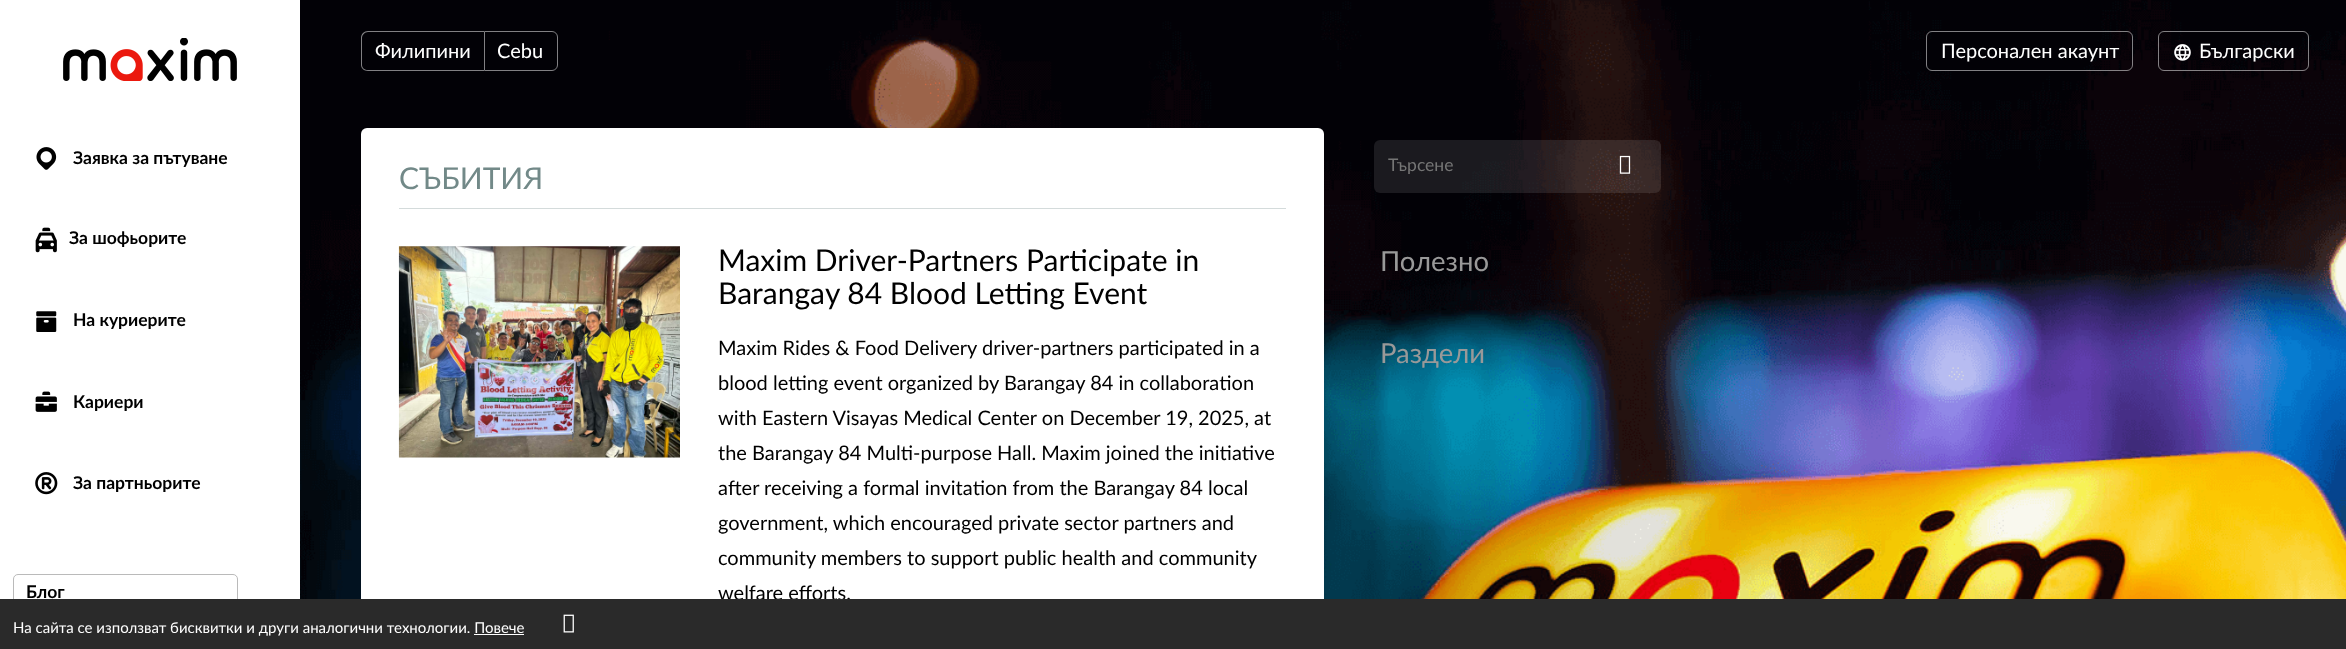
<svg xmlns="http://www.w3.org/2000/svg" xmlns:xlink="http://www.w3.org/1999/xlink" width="2346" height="649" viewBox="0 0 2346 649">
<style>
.cls-1{font:bold 17.5px Lato;fill:#000000}
.cls-2{font:20px Lato;fill:#ffffff}
.cls-3{font:30px Lato;fill:#728988}
.cls-4{font:30px Lato;fill:#000000}
.cls-5{font:20px Lato;fill:#000000}
.cls-6{font:17.5px Lato;fill:#757575}
.cls-7{font:27.5px Lato;fill:#999999}
.cls-8{font:15px Lato;fill:#ffffff}
</style>
<rect width="100%" height="100%" fill="#ffffff"/>
<image xlink:href="image0.png" x="63" y="38" width="174" height="43"/>
<image xlink:href="image1.png" x="36" y="147" width="21" height="23"/>
<image xlink:href="image2.png" x="35" y="227" width="22" height="26"/>
<image xlink:href="image3.png" x="36" y="311" width="21" height="21"/>
<image xlink:href="image4.png" x="35" y="391" width="22" height="21"/>
<image xlink:href="image5.png" x="35" y="472" width="23" height="23"/>
<rect fill="none" stroke="#bababa" x="13.5" y="574.5" width="224" height="36" rx="4.5"/>
<image xlink:href="image6.png" x="300" y="0" width="2046" height="599"/>
<path fill="#818083" fill-rule="evenodd" d="M368 31H484V71H368C364 71 361 68 361 65V38C361 34 364 31 368 31ZM368 32H484V70H368C365 70 362 68 362 65V38C362 35 365 32 368 32Z"/>
<path fill="none" stroke="#818083" d="M484.5 31.5H552C555 31.5 557.5 34 557.5 37V65C557.5 68 555 70.5 552 70.5H484.5Z"/>
<rect fill="none" stroke="#ffffff" stroke-opacity="0.5" x="1926.5" y="31.5" width="206" height="39" rx="5.5"/>
<rect fill="none" stroke="#ffffff" stroke-opacity="0.5" x="2158.5" y="31.5" width="150" height="39" rx="5.5"/>
<image xlink:href="image7.png" x="2174" y="44" width="17" height="17"/>
<rect fill="#ffffff" x="361" y="128" width="963" height="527" rx="6"/>
<rect fill="#d4dbdb" x="399" y="208" width="887" height="1"/>
<image xlink:href="image8.png" x="398" y="246" width="282" height="212"/>
<rect fill="#ffffff" fill-opacity="0.1" x="1374" y="140" width="287" height="53" rx="6"/>
<image xlink:href="image9.png" x="1619" y="155" width="12" height="19"/>
<text class="cls-1" x="73" y="164">Заявка за пътуване</text>
<text class="cls-1" x="69" y="244">За шофьорите</text>
<text class="cls-1" x="73" y="326">На куриерите</text>
<text class="cls-1" x="73" y="408">Кариери</text>
<text class="cls-1" x="73" y="489">За партньорите</text>
<text class="cls-1" x="26" y="598">Блог</text>
<text class="cls-2" x="375" y="58">Филипини</text>
<text class="cls-2" x="497" y="58">Cebu</text>
<text class="cls-2" x="1941" y="58">Персонален акаунт</text>
<text class="cls-2" x="2199" y="58">Български</text>
<text class="cls-3" x="399" y="189">СЪБИТИЯ</text>
<text class="cls-4"><tspan x="718" y="271">Maxim Driver-Partners Participate in</tspan><tspan x="718" y="304">Barangay 84 Blood Letting Event</tspan></text>
<text class="cls-5"><tspan x="718" y="355">Maxim Rides &amp; Food Delivery driver-partners participated in a</tspan><tspan x="718" y="390">blood letting event organized by Barangay 84 in collaboration</tspan><tspan x="718" y="425">with Eastern Visayas Medical Center on December 19, 2025, at</tspan><tspan x="718" y="460">the Barangay 84 Multi-purpose Hall. Maxim joined the initiative</tspan><tspan x="718" y="495">after receiving a formal invitation from the Barangay 84 local</tspan><tspan x="718" y="530">government, which encouraged private sector partners and</tspan><tspan x="718" y="565">community members to support public health and community</tspan><tspan x="718" y="600">welfare efforts.</tspan></text>
<text class="cls-6" x="1388" y="171">Търсене</text>
<text class="cls-7" x="1380" y="271">Полезно</text>
<text class="cls-7" x="1380" y="363">Раздели</text>
<rect fill="#2a2a2a" x="0" y="599" width="2346" height="50"/>
<text class="cls-8" x="13" y="633">На сайта се използват бисквитки и други аналогични технологии. Повече</text>
<image xlink:href="image10.png" x="563" y="614" width="11" height="19"/>
<rect fill="#ffffff" x="474" y="634" width="50" height="1"/>
</svg>
